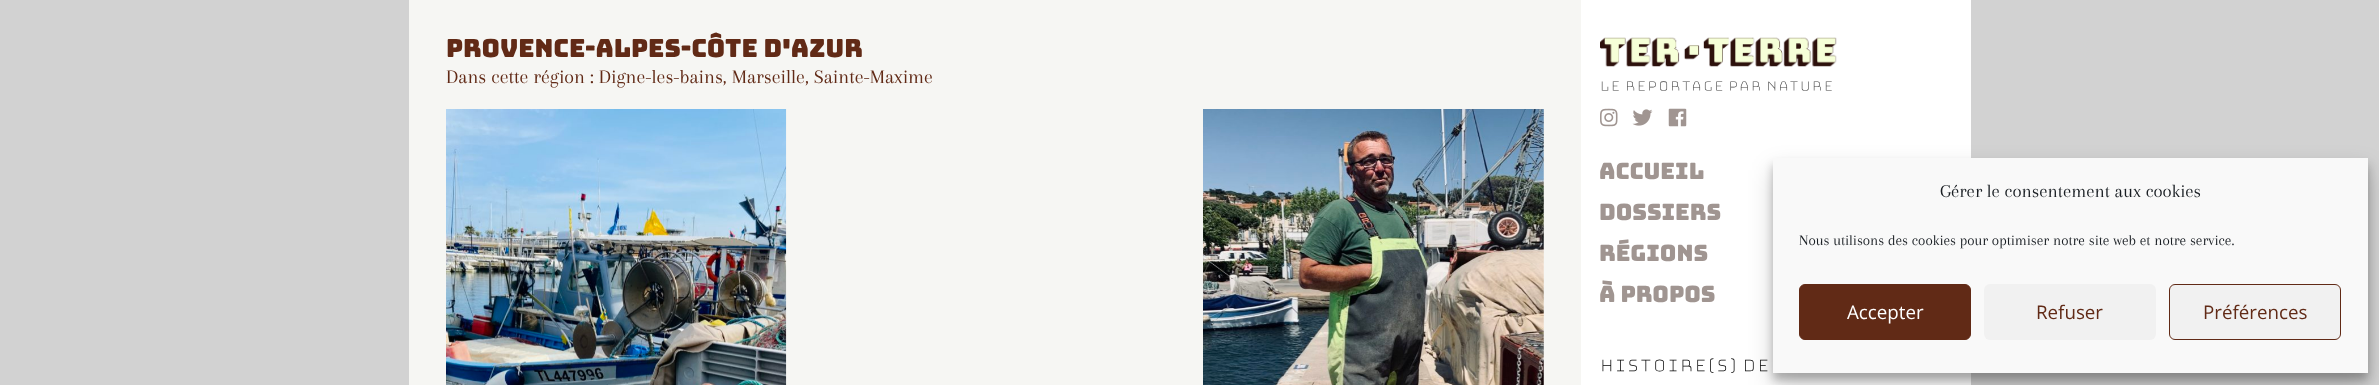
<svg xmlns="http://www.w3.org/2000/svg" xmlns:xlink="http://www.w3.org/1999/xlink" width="2379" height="385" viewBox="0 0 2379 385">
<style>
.cls-1{font:25px Bungee;fill:#612a16}
.cls-2{font:20px Arapey;fill:#612a16}
.cls-3{font:bold 16px Bungee Hairline;fill:#444444}
.cls-4{font:22.5px Bungee;fill:#a09591}
.cls-5{font:bold 20px Bungee Hairline;fill:#000000}
.cls-6{font:18.75px Arapey;fill:#191e23}
.cls-7{font:15px Arapey;fill:#191e23}
.cls-8{font:18.75px Open Sans;fill:#ffffff}
.cls-9{font:18.75px Open Sans;fill:#612a16}
</style>
<rect width="100%" height="100%" fill="#d2d2d2"/>
<rect fill="#f6f6f3" x="409" y="0" width="1172" height="385"/>
<image xlink:href="image0.png" x="446" y="109" width="341" height="276"/>
<image xlink:href="image1.png" x="1203" y="109" width="341" height="276"/>
<rect fill="#ffffff" x="1581" y="0" width="390" height="385"/>
<image xlink:href="image2.png" x="1600" y="37" width="237" height="30"/>
<image xlink:href="image3.png" x="1600" y="108" width="18" height="19"/>
<image xlink:href="image4.png" x="1632" y="109" width="21" height="17"/>
<image xlink:href="image5.png" x="1668" y="108" width="19" height="19"/>
<rect fill="#000000" fill-opacity="0.23" filter="blur(4px)" x="1773" y="165" width="595" height="215"/>
<rect fill="#000000" fill-opacity="0.19" filter="blur(12.5px)" x="1773" y="170" width="595" height="215"/>
<rect fill="#f9f9f9" x="1773" y="158" width="595" height="215"/>
<rect fill="#612a16" stroke="#612a16" x="1799.5" y="284.5" width="171" height="55" rx="5.5"/>
<rect fill="#f1f1f1" x="1984" y="284" width="172" height="56" rx="6"/>
<rect fill="#f1f1f1" stroke="#612a16" x="2169.5" y="284.5" width="171" height="55" rx="5.5"/>
<text class="cls-1" x="446" y="57">PROVENCE-ALPES-CÔTE D'AZUR</text>
<text class="cls-2" x="446" y="83">Dans cette région : Digne-les-bains, Marseille, Sainte-Maxime</text>
<text class="cls-3" x="1599" y="92">LE REPORTAGE PAR NATURE</text>
<text class="cls-4"><tspan x="1599" y="179">Accueil</tspan><tspan x="1599" y="220">Dossiers</tspan><tspan x="1599" y="261">Régions</tspan><tspan x="1599" y="302">À propos</tspan></text>
<text class="cls-5" x="1599" y="373">Histoire(s) de</text>
<text class="cls-6" x="1940" y="197">Gérer le consentement aux cookies</text>
<text class="cls-7" x="1799" y="245">Nous utilisons des cookies pour optimiser notre site web et notre service.</text>
<text class="cls-8" x="1847" y="319">Accepter</text>
<text class="cls-9" x="2036" y="319">Refuser</text>
<text class="cls-9" x="2203" y="319">Préférences</text>
</svg>
